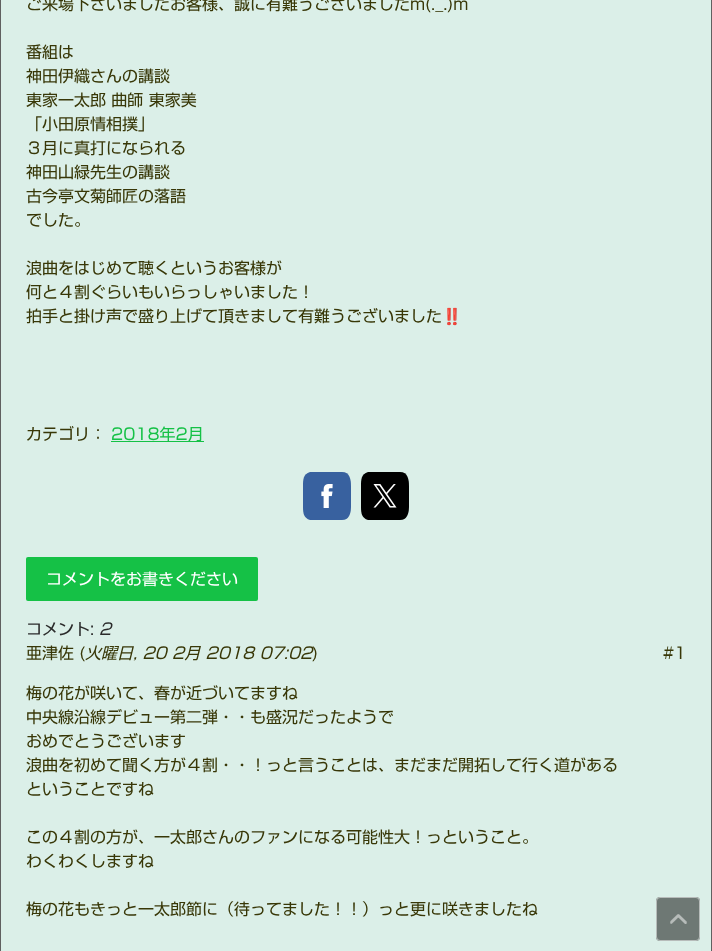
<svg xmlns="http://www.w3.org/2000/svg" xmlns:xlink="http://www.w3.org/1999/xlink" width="712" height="951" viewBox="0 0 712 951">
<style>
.cls-1{font:16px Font;fill:#383707}
.cls-2{font:16px Noto Color Emoji;fill:#383707}
.cls-3{font:16px Font;fill:#15c146}
.cls-4{font:16px Font;fill:#ffffff}
.cls-5{font:16px Font;fill:#2b2b2b}
.cls-6{font:italic 16px Font;fill:#2b2b2b}
.cls-7{font:italic 16px Font;fill:#383707}
</style>
<rect width="100%" height="100%" fill="#ffffff"/>
<rect fill="none" stroke="#606060" x="0.5" y="-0.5" width="711" height="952"/>
<rect fill="#dbefe8" x="1" y="0" width="710" height="951"/>
<rect fill="#15c146" x="111" y="441" width="93" height="1"/>
<path fill="#38619f" d="M342 520H310C303 518 303 512 303 506V486C303 480 303 474 310 472H342C350 472 351 480 351 486V506C351 512 350 520 342 520Z"/>
<image xlink:href="image0.png" x="321" y="484" width="12" height="24"/>
<path fill="#000000" d="M400 520H368C361 518 361 512 361 506V486C361 480 361 474 368 472H400C408 472 409 480 409 486V506C409 512 408 520 400 520Z"/>
<image xlink:href="image1.png" x="373" y="484" width="24" height="24"/>
<rect fill="#15c146" x="26" y="557" width="232" height="44" rx="2"/>
<rect fill="#6e7874" x="656" y="897" width="44" height="44" rx="4"/>
<rect fill="none" stroke="#ffffff" stroke-opacity="0.5" x="656.5" y="897.5" width="43" height="43" rx="3.5"/>
<image xlink:href="image2.png" x="670" y="914" width="17" height="10"/>
<text class="cls-1" x="26" y="10">ご来場下さいましたお客様、誠に有難うございましたm(._.)m</text>
<text class="cls-1"><tspan x="26" y="58">番組は</tspan><tspan x="26" y="82">神田伊織さんの講談</tspan><tspan x="26" y="106">東家一太郎 曲師 東家美</tspan><tspan x="26" y="130">「小田原情相撲」</tspan><tspan x="26" y="154">３月に真打になられる</tspan><tspan x="26" y="178">神田山緑先生の講談</tspan><tspan x="26" y="202">古今亭文菊師匠の落語</tspan><tspan x="26" y="226">でした。</tspan></text>
<text class="cls-1"><tspan x="26" y="274">浪曲をはじめて聴くというお客様が</tspan><tspan x="26" y="298">何と４割ぐらいもいらっしゃいました！</tspan><tspan x="26" y="322">拍手と掛け声で盛り上げて頂きまして有難うございました</tspan></text>
<text class="cls-2" x="442" y="322">‼️</text>
<text class="cls-1" x="26" y="440">カテゴリ：</text>
<text class="cls-3" x="111" y="440">2018年2月</text>
<text class="cls-4" x="46" y="585">コメントをお書きください</text>
<text class="cls-5" x="26" y="635">コメント:</text>
<text class="cls-6" x="99" y="635">2</text>
<text class="cls-1" x="26" y="659">亜津佐 (</text>
<text class="cls-7" x="85" y="659">火曜日, 20 2月 2018 07:02</text>
<text class="cls-1" x="312" y="659">)</text>
<text class="cls-1" x="663" y="659">#1</text>
<text class="cls-1"><tspan x="26" y="699">梅の花が咲いて、春が近づいてますね</tspan><tspan x="26" y="723">中央線沿線デビュー第二弾・・も盛況だったようで</tspan><tspan x="26" y="747">おめでとうございます</tspan><tspan x="26" y="771">浪曲を初めて聞く方が４割・・！っと言うことは、まだまだ開拓して行く道がある</tspan><tspan x="26" y="795">ということですね</tspan></text>
<text class="cls-1"><tspan x="26" y="843">この４割の方が、一太郎さんのファンになる可能性大！っということ。</tspan><tspan x="26" y="867">わくわくしますね</tspan></text>
<text class="cls-1" x="26" y="915">梅の花もきっと一太郎節に（待ってました！！）っと更に咲きましたね</text>
</svg>
